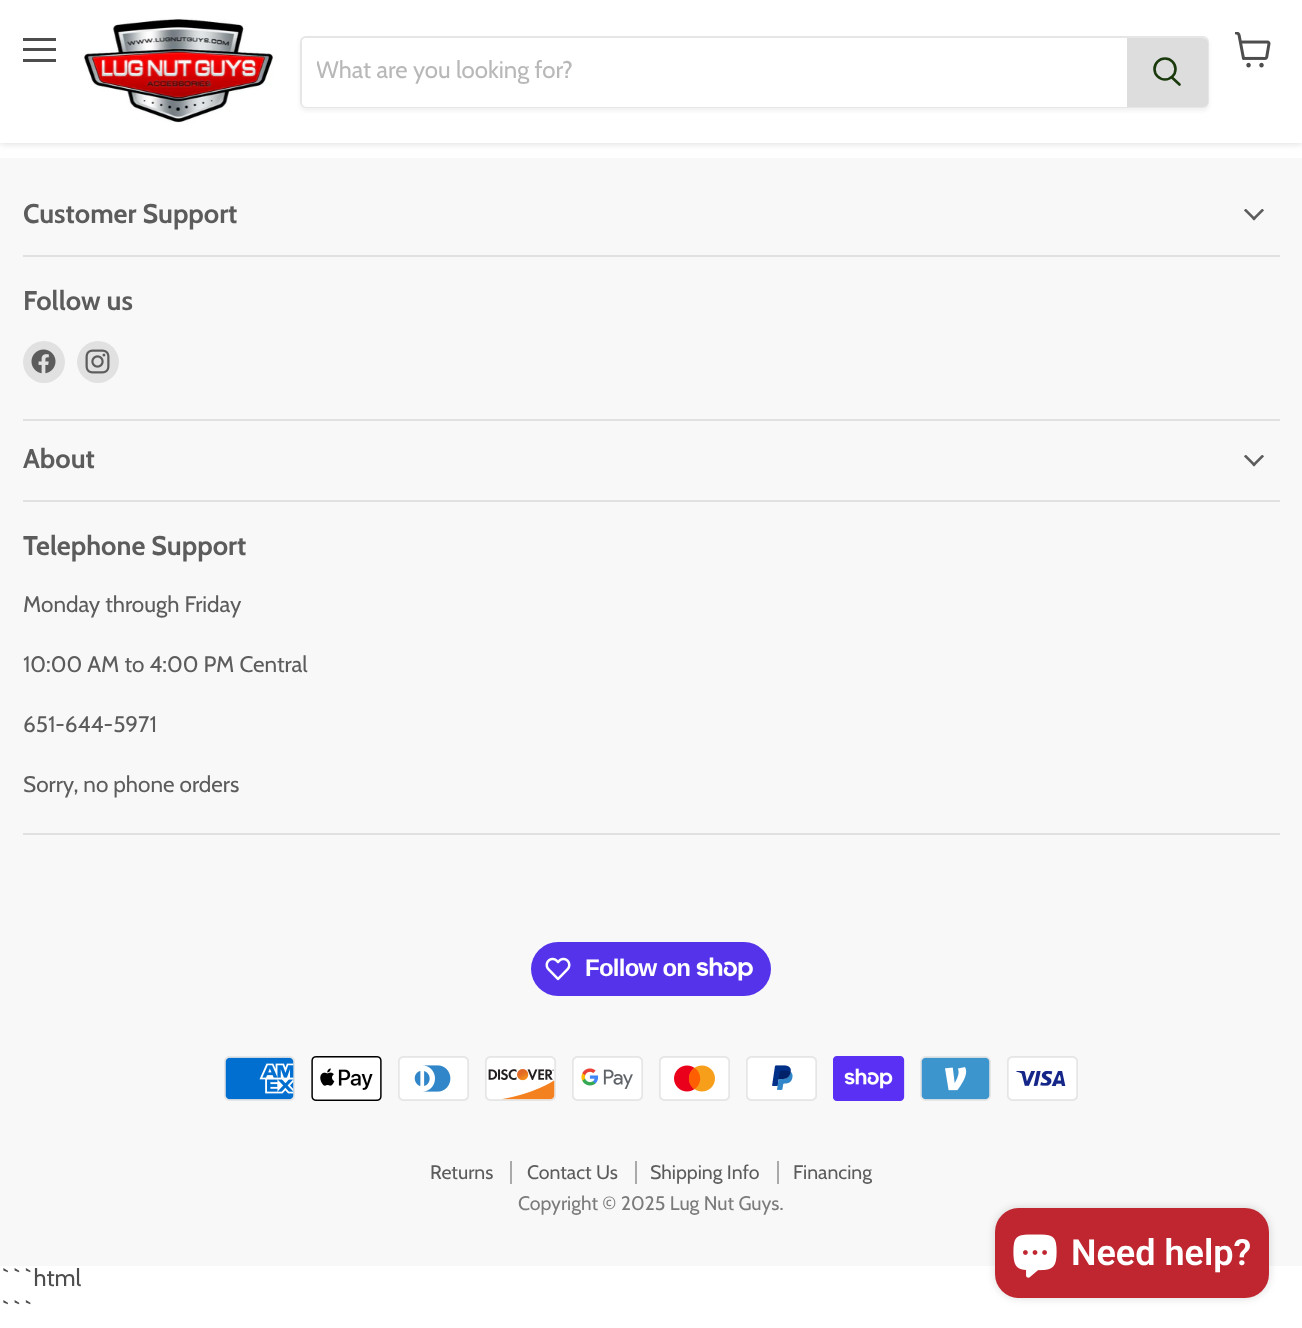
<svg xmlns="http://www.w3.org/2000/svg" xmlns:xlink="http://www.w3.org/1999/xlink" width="1302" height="1328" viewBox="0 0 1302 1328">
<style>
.cls-1{font:24px Cabin;fill:#b8b8b8}
.cls-2{font:bold 27px Cabin;fill:#5c5c5c}
.cls-3{font:22.5px Cabin;fill:#5c5c5c}
.cls-4{font:bold 24px Liberation Sans;letter-spacing:-0.75px;fill:#ffffff}
.cls-5{font:19.5px Cabin;fill:#5c5c5c}
.cls-6{font:19.5px Cabin;fill:#7b7b7b}
.cls-7{font:600 36px Roboto;fill:#ffffff}
.cls-8{font:24px Cabin;fill:#4d4d4d}
</style>
<defs>
<clipPath id="clip1"><path d="M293 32H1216V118H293ZM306 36H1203C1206.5 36 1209 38.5 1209 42V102C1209 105.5 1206.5 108 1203 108H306C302.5 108 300 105.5 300 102V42C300 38.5 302.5 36 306 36Z" clip-rule="evenodd"/></clipPath>
<clipPath id="clip2"><rect x="317" y="56" width="795" height="28"/></clipPath>
</defs>
<rect width="100%" height="100%" fill="#ffffff"/>
<rect fill="#808080" fill-opacity="0.25" filter="blur(3px)" x="0" y="2" width="1302" height="142"/>
<rect fill="#ffffff" x="0" y="0" width="1302" height="143"/>
<rect fill="#4d4d4d" x="23" y="38" width="33" height="3"/>
<rect fill="#4d4d4d" x="23" y="48" width="33" height="3"/>
<rect fill="#4d4d4d" x="23" y="59" width="33" height="3"/>
<image xlink:href="image0.png" x="1235" y="32" width="36" height="36"/>
<image xlink:href="image1.png" x="83" y="18" width="190" height="105"/>
<g clip-path="url(#clip1)">
<rect fill="#808080" fill-opacity="0.11" filter="blur(2px)" x="300" y="39" width="909" height="72" rx="6"/>
</g>
<rect fill="none" stroke="#808080" stroke-opacity="0.2" stroke-width="2" x="301" y="37" width="907" height="70" rx="5"/>
<path fill="#ffffff" d="M307 38H1127V107H307C304 107 302 105 302 102V43C302 40 304 38 307 38Z"/>
<path fill="#dddddd" stroke="#dddddd" stroke-width="2" d="M1128 39H1203C1205 39 1207 41 1207 43V102C1207 104 1205 106 1203 106H1128Z"/>
<path fill="none" stroke="#1a390c" stroke-width="2.6" stroke-linecap="round" d="M1179.5 84.5L1172 77.5"/>
<circle fill="none" stroke="#1a390c" stroke-width="2.6" cx="1165" cy="69" r="10.5"/>
<rect fill="#f8f8f8" x="0" y="158" width="1302" height="1108"/>
<rect fill="#e1e1e1" x="23" y="255" width="1257" height="2"/>
<image xlink:href="image2.png" x="1244" y="209" width="20" height="12"/>
<rect fill="#e1e1e1" x="23" y="419" width="1257" height="2"/>
<circle fill="#e1e1e1" cx="44" cy="362" r="21"/>
<image xlink:href="image3.png" x="31" y="349" width="25" height="25"/>
<circle fill="#e1e1e1" cx="98" cy="362" r="21"/>
<image xlink:href="image4.png" x="85" y="349" width="25" height="25"/>
<rect fill="#e1e1e1" x="23" y="500" width="1257" height="2"/>
<image xlink:href="image2.png" x="1244" y="455" width="20" height="12"/>
<rect fill="#e1e1e1" x="23" y="833" width="1257" height="2"/>
<rect fill="#5433eb" x="531" y="942" width="240" height="54" rx="27"/>
<image xlink:href="image5.png" x="545" y="957" width="26" height="24"/>
<image xlink:href="image6.png" x="696" y="957" width="57" height="24"/>
<image xlink:href="image7.png" x="224" y="1056" width="71" height="45"/>
<image xlink:href="image8.png" x="311" y="1056" width="71" height="45"/>
<image xlink:href="image9.png" x="398" y="1056" width="71" height="45"/>
<image xlink:href="image10.png" x="485" y="1056" width="71" height="45"/>
<image xlink:href="image11.png" x="572" y="1056" width="71" height="45"/>
<image xlink:href="image12.png" x="659" y="1056" width="71" height="45"/>
<image xlink:href="image13.png" x="746" y="1056" width="71" height="45"/>
<image xlink:href="image14.png" x="833" y="1056" width="72" height="45"/>
<image xlink:href="image15.png" x="920" y="1056" width="71" height="45"/>
<image xlink:href="image16.png" x="1007" y="1056" width="71" height="45"/>
<rect fill="#aaaaaa" x="510" y="1161" width="2" height="23"/>
<rect fill="#aaaaaa" x="635" y="1161" width="2" height="23"/>
<rect fill="#aaaaaa" x="777" y="1161" width="2" height="23"/>
<rect fill="#000000" fill-opacity="0.15" filter="blur(4px)" x="995" y="1208" width="274" height="90" rx="24"/>
<rect fill="#bf262f" x="995" y="1208" width="274" height="90" rx="24"/>
<image xlink:href="image17.png" x="1013" y="1234" width="44" height="44"/>
<g clip-path="url(#clip2)">
<text class="cls-1" x="316" y="78">What are you looking for?</text>
</g>
<text class="cls-2" x="23" y="223">Customer Support</text>
<text class="cls-2" x="23" y="310">Follow us</text>
<text class="cls-2" x="23" y="468">About</text>
<text class="cls-2" x="23" y="555">Telephone Support</text>
<text class="cls-3" x="23" y="612">Monday through Friday</text>
<text class="cls-3" x="23" y="672">10:00 AM to 4:00 PM Central</text>
<text class="cls-3" x="23" y="732">651-644-5971</text>
<text class="cls-3" x="23" y="792">Sorry, no phone orders</text>
<text class="cls-4" x="585" y="976">Follow on</text>
<text class="cls-5" x="430" y="1179">Returns</text>
<text class="cls-5" x="527" y="1179">Contact Us</text>
<text class="cls-5" x="650" y="1179">Shipping Info</text>
<text class="cls-5" x="793" y="1179">Financing</text>
<text class="cls-6" x="518" y="1210">Copyright © 2025 Lug Nut Guys.</text>
<text class="cls-7" x="1071" y="1265">Need help?</text>
<text class="cls-8"><tspan x="0" y="1286">```html</tspan><tspan x="0" y="1318">```</tspan></text>
</svg>
